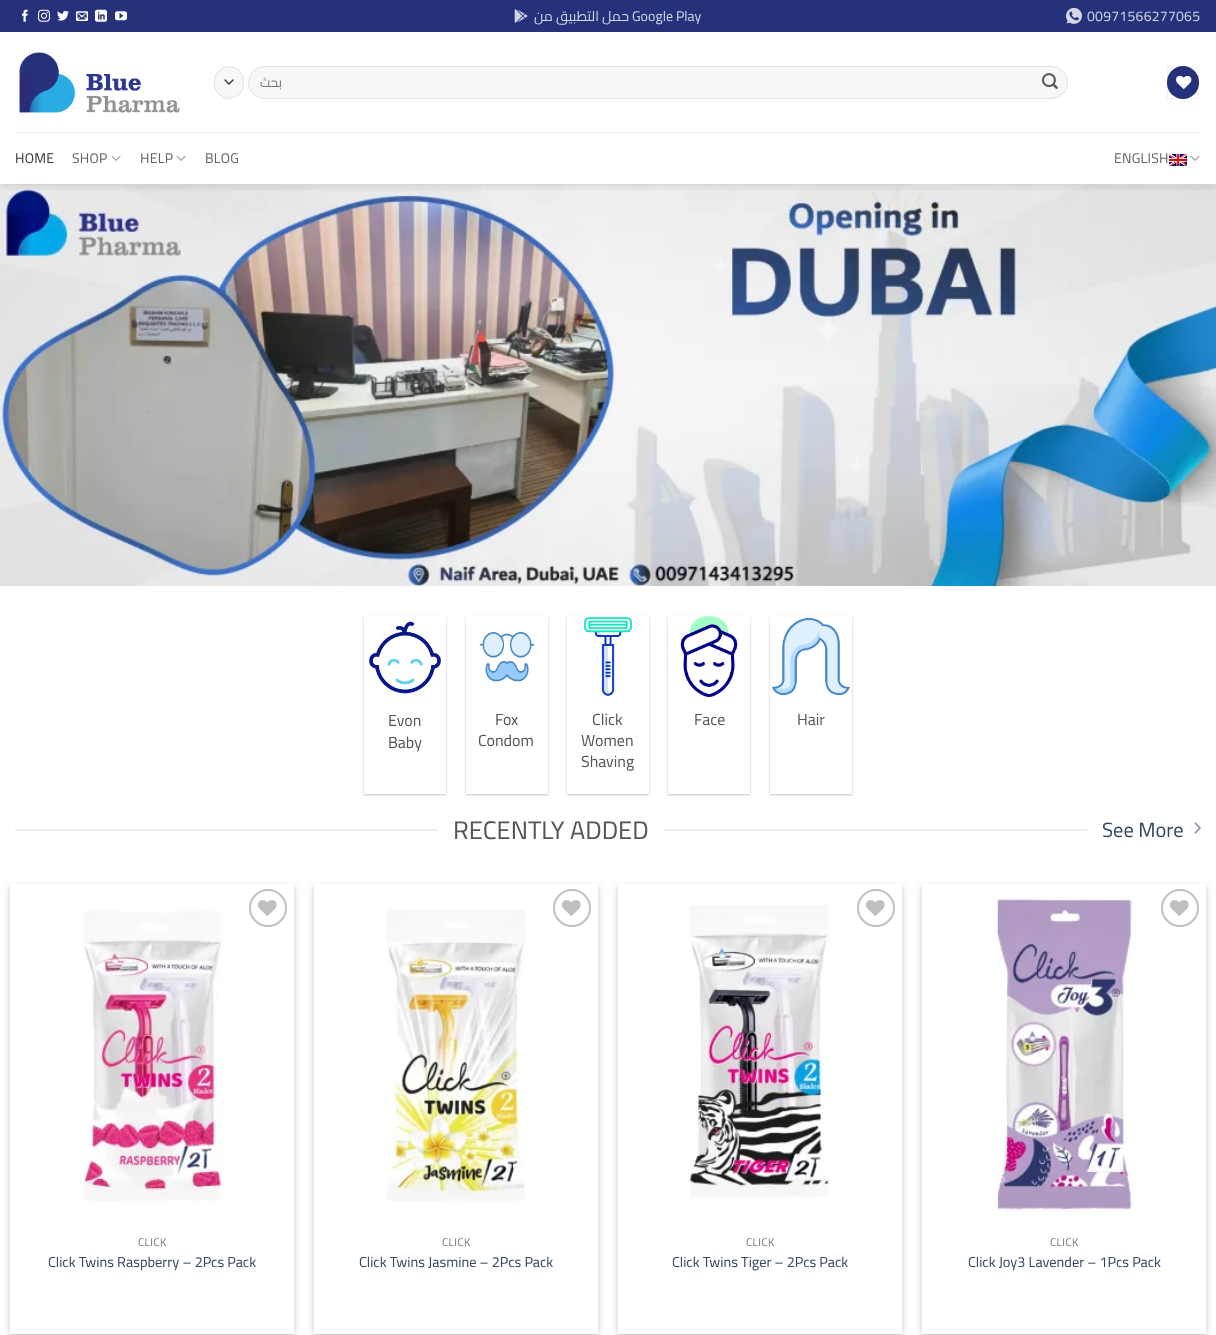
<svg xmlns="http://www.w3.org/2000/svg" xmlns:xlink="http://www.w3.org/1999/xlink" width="1216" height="1335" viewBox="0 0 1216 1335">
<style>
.cls-1{font:14px Cairo;direction:rtl;fill:#d3d6e5}
.cls-2{font:14px Cairo;fill:#d3d6e5}
.cls-3{font:14px Cairo;letter-spacing:0.25px;fill:#d3d6e5}
.cls-4{font:13px Cairo;direction:rtl;fill:#777777}
.cls-5{font:14px Cairo;letter-spacing:0.25px;fill:#363636}
.cls-6{font:14px Cairo;letter-spacing:0.25px;fill:#656565}
.cls-7{font:16px Cairo;fill:#555555}
.cls-8{font:25.5px Cairo;fill:#555555}
.cls-9{font:20.5px Cairo;fill:#334862}
.cls-10{font:11px Cairo;letter-spacing:0.5px;fill:#777777}
.cls-11{font:14.4px Cairo;fill:#334862}
</style>
<defs>
<clipPath id="clip1"><rect x="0" y="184" width="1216" height="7"/></clipPath>
<clipPath id="clip2"><path d="M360 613H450V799H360ZM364 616H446V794H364Z" clip-rule="evenodd"/></clipPath>
<clipPath id="clip3"><path d="M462 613H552V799H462ZM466 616H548V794H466Z" clip-rule="evenodd"/></clipPath>
<clipPath id="clip4"><path d="M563 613H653V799H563ZM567 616H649V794H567Z" clip-rule="evenodd"/></clipPath>
<clipPath id="clip5"><path d="M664 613H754V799H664ZM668 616H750V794H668Z" clip-rule="evenodd"/></clipPath>
<clipPath id="clip6"><path d="M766 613H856V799H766ZM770 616H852V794H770Z" clip-rule="evenodd"/></clipPath>
<clipPath id="clip7"><path d="M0 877H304V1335H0ZM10 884H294V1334H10Z" clip-rule="evenodd"/></clipPath>
<clipPath id="clip8"><rect x="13" y="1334" width="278" height="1"/></clipPath>
<clipPath id="clip9"><path d="M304 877H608V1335H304ZM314 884H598V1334H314Z" clip-rule="evenodd"/></clipPath>
<clipPath id="clip10"><rect x="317" y="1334" width="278" height="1"/></clipPath>
<clipPath id="clip11"><path d="M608 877H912V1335H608ZM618 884H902V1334H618Z" clip-rule="evenodd"/></clipPath>
<clipPath id="clip12"><rect x="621" y="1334" width="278" height="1"/></clipPath>
<clipPath id="clip13"><path d="M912 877H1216V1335H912ZM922 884H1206V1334H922Z" clip-rule="evenodd"/></clipPath>
<clipPath id="clip14"><rect x="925" y="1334" width="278" height="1"/></clipPath>
</defs>
<rect width="100%" height="100%" fill="#ffffff"/>
<image xlink:href="image13.png" x="0" y="184" width="1216" height="402"/>
<g clip-path="url(#clip1)">
<rect fill="#000000" fill-opacity="0.15" filter="blur(5px)" x="1" y="1" width="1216" height="184"/>
</g>
<rect fill="#25327b" x="0" y="0" width="1216" height="32"/>
<image xlink:href="image0.png" x="22" y="9" width="6" height="13"/>
<image xlink:href="image1.png" x="38" y="9" width="12" height="13"/>
<image xlink:href="image2.png" x="57" y="10" width="12" height="11"/>
<image xlink:href="image3.png" x="76" y="11" width="12" height="10"/>
<image xlink:href="image4.png" x="95" y="9" width="12" height="13"/>
<image xlink:href="image5.png" x="115" y="11" width="12" height="10"/>
<image xlink:href="image6.png" x="514" y="9" width="14" height="14"/>
<image xlink:href="image7.png" x="1066" y="7" width="16" height="17"/>
<image xlink:href="image8.png" x="19" y="52" width="161" height="61"/>
<rect fill="#f7f7f7" x="214" y="66" width="30" height="33" rx="15"/>
<path fill="none" stroke="#333333" stroke-width="1.3" stroke-linecap="round" stroke-linejoin="round" d="M225 80L229 84L233 80"/>
<rect fill="none" stroke="#000000" stroke-opacity="0.09" x="214.5" y="66.5" width="29" height="32" rx="14.5"/>
<rect fill="#f7f7f7" x="248" y="66" width="820" height="33" rx="16.5"/>
<rect fill="none" stroke="#000000" stroke-opacity="0.09" x="248.5" y="66.5" width="819" height="32" rx="16"/>
<image xlink:href="image9.png" x="1042" y="73" width="16" height="16"/>
<rect fill="#25327b" x="1167" y="66" width="32" height="33" rx="16"/>
<rect fill="none" stroke="#000000" stroke-opacity="0.05" x="1167.5" y="66.5" width="31" height="32"/>
<image xlink:href="image10.png" x="1176" y="75" width="16" height="14"/>
<rect fill="#eeeeee" x="15" y="132" width="1186" height="1"/>
<image xlink:href="image11.png" x="111" y="155" width="10" height="6"/>
<image xlink:href="image11.png" x="176" y="155" width="10" height="6"/>
<image xlink:href="image12.png" x="1169" y="154" width="18" height="12"/>
<image xlink:href="image11.png" x="1190" y="155" width="10" height="6"/>
<g clip-path="url(#clip2)">
<rect fill="#000000" fill-opacity="0.24" filter="blur(1px)" x="364" y="617" width="82" height="178"/>
</g>
<image xlink:href="image14.png" x="369" y="621" width="72" height="73"/>
<g clip-path="url(#clip3)">
<rect fill="#000000" fill-opacity="0.24" filter="blur(1px)" x="466" y="617" width="82" height="178"/>
</g>
<image xlink:href="image15.png" x="479" y="631" width="56" height="51"/>
<g clip-path="url(#clip4)">
<rect fill="#000000" fill-opacity="0.24" filter="blur(1px)" x="567" y="617" width="82" height="178"/>
</g>
<image xlink:href="image16.png" x="584" y="617" width="48" height="79"/>
<g clip-path="url(#clip5)">
<rect fill="#000000" fill-opacity="0.24" filter="blur(1px)" x="668" y="617" width="82" height="178"/>
</g>
<image xlink:href="image17.png" x="680" y="616" width="58" height="81"/>
<g clip-path="url(#clip6)">
<rect fill="#000000" fill-opacity="0.24" filter="blur(1px)" x="770" y="617" width="82" height="178"/>
</g>
<image xlink:href="image18.png" x="772" y="617" width="78" height="79"/>
<rect fill="#eeeeee" x="15" y="829" width="423" height="2"/>
<rect fill="#eeeeee" x="664" y="829" width="423" height="2"/>
<image xlink:href="image19.png" x="1194" y="822" width="7" height="12"/>
<g clip-path="url(#clip7)">
<rect fill="#000000" fill-opacity="0.23" filter="blur(3px)" x="10" y="887" width="284" height="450"/>
</g>
<g clip-path="url(#clip8)">
<rect fill="#000000" fill-opacity="0.16" filter="blur(3px)" x="14" y="891" width="276" height="442"/>
</g>
<image xlink:href="image20.png" x="82" y="910" width="141" height="291"/>
<circle fill="none" stroke="#c0c0c0" stroke-width="2" cx="268" cy="908" r="18"/>
<image xlink:href="image21.png" x="258" y="900" width="19" height="16"/>
<g clip-path="url(#clip9)">
<rect fill="#000000" fill-opacity="0.23" filter="blur(3px)" x="314" y="887" width="284" height="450"/>
</g>
<g clip-path="url(#clip10)">
<rect fill="#000000" fill-opacity="0.16" filter="blur(3px)" x="318" y="891" width="276" height="442"/>
</g>
<image xlink:href="image22.png" x="386" y="909" width="140" height="292"/>
<circle fill="none" stroke="#c0c0c0" stroke-width="2" cx="572" cy="908" r="18"/>
<image xlink:href="image21.png" x="562" y="900" width="19" height="16"/>
<g clip-path="url(#clip11)">
<rect fill="#000000" fill-opacity="0.23" filter="blur(3px)" x="618" y="887" width="284" height="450"/>
</g>
<g clip-path="url(#clip12)">
<rect fill="#000000" fill-opacity="0.16" filter="blur(3px)" x="622" y="891" width="276" height="442"/>
</g>
<image xlink:href="image23.png" x="688" y="905" width="142" height="292"/>
<circle fill="none" stroke="#c0c0c0" stroke-width="2" cx="876" cy="908" r="18"/>
<image xlink:href="image21.png" x="866" y="900" width="19" height="16"/>
<g clip-path="url(#clip13)">
<rect fill="#000000" fill-opacity="0.23" filter="blur(3px)" x="922" y="887" width="284" height="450"/>
</g>
<g clip-path="url(#clip14)">
<rect fill="#000000" fill-opacity="0.16" filter="blur(3px)" x="926" y="891" width="276" height="442"/>
</g>
<image xlink:href="image24.png" x="996" y="893" width="138" height="321"/>
<circle fill="none" stroke="#c0c0c0" stroke-width="2" cx="1180" cy="908" r="18"/>
<image xlink:href="image21.png" x="1170" y="900" width="19" height="16"/>
<text class="cls-1" x="629" y="21">حمل التطبيق من</text>
<text class="cls-2" x="632" y="21">Google Play</text>
<text class="cls-3" x="1087" y="21">00971566277065</text>
<text class="cls-4" x="282" y="87">بحث</text>
<text class="cls-5" x="15" y="163">HOME</text>
<text class="cls-6" x="72" y="163">SHOP</text>
<text class="cls-6" x="140" y="163">HELP</text>
<text class="cls-6" x="205" y="163">BLOG</text>
<text class="cls-6" x="1114" y="163">ENGLISH</text>
<text class="cls-7"><tspan x="388" y="726">Evon</tspan><tspan x="388" y="748">Baby</tspan></text>
<text class="cls-7" x="495" y="725">Fox</text>
<text class="cls-7" x="478" y="746">Condom</text>
<text class="cls-7" x="592" y="725">Click</text>
<text class="cls-7"><tspan x="581" y="746">Women</tspan><tspan x="581" y="767">Shaving</tspan></text>
<text class="cls-7" x="694" y="725">Face</text>
<text class="cls-7" x="797" y="725">Hair</text>
<text class="cls-8" x="453" y="839">RECENTLY ADDED</text>
<text class="cls-9" x="1102" y="837">See More</text>
<text class="cls-10" x="138" y="1246">CLICK</text>
<text class="cls-11" x="48" y="1267">Click Twins Raspberry – 2Pcs Pack</text>
<text class="cls-10" x="442" y="1246">CLICK</text>
<text class="cls-11" x="359" y="1267">Click Twins Jasmine – 2Pcs Pack</text>
<text class="cls-10" x="746" y="1246">CLICK</text>
<text class="cls-11" x="672" y="1267">Click Twins Tiger – 2Pcs Pack</text>
<text class="cls-10" x="1050" y="1246">CLICK</text>
<text class="cls-11" x="968" y="1267">Click Joy3 Lavender – 1Pcs Pack</text>
</svg>
